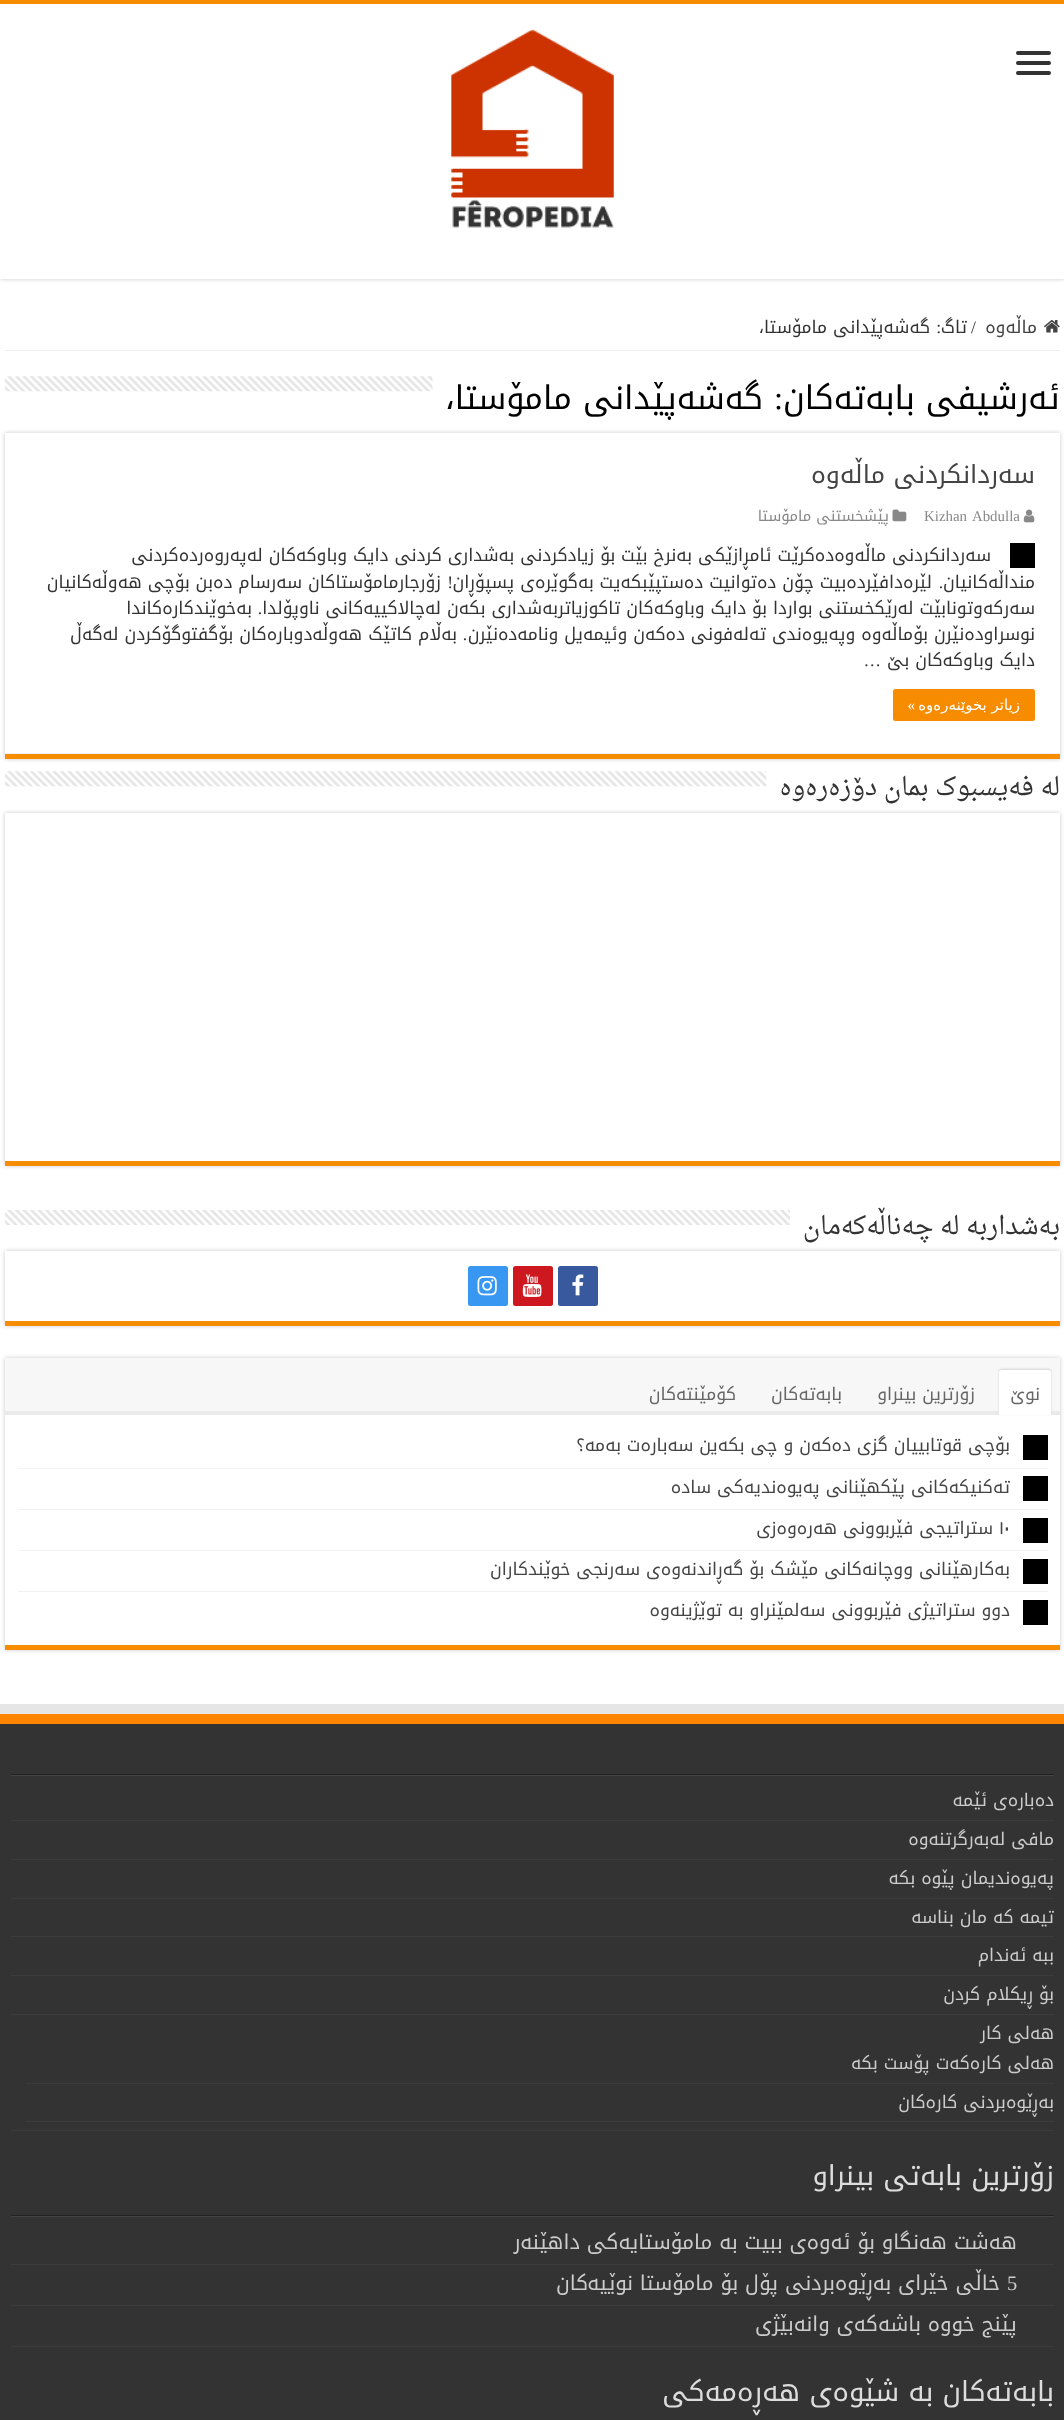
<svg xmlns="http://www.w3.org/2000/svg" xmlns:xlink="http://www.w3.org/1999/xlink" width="1064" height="2420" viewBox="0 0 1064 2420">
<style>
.cls-1{font:17.5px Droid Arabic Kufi;direction:rtl;fill:#444444}
.cls-2{font:17.5px Liberation Serif;fill:#333333}
.cls-3{font:17.5px Droid Arabic Kufi;direction:rtl;fill:#333333}
.cls-4{font:17.5px Liberation Serif;direction:rtl;fill:#333333}
.cls-5{font:32.5px Droid Arabic Kufi;direction:rtl;fill:#000000}
.cls-6{font:32.5px Liberation Serif;direction:rtl;fill:#000000}
.cls-7{font:25px Droid Arabic Kufi;direction:rtl;fill:#444444}
.cls-8{font:14.9px Liberation Serif;fill:#888888}
.cls-9{font:14.9px Droid Arabic Kufi;direction:rtl;fill:#888888}
.cls-10{font:15px DejaVu Sans;direction:rtl;fill:#ffffff}
.cls-11{font:15px Liberation Serif;direction:rtl;fill:#ffffff}
.cls-12{font:25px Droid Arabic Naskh;direction:rtl;fill:#333333}
.cls-13{font:17.5px Droid Arabic Kufi;direction:rtl;fill:#666666}
.cls-14{font:17.5px Droid Arabic Kufi;fill:#444444}
.cls-15{font:17.5px Droid Arabic Kufi;direction:rtl;fill:#cccccc}
.cls-16{font:27.5px Droid Arabic Kufi;direction:rtl;fill:#dddddd}
.cls-17{font:20.5px Droid Arabic Kufi;direction:rtl;fill:#cccccc}
.cls-18{font:20.5px Liberation Serif;fill:#cccccc}
</style>
<defs>
<clipPath id="clip1"><path d="M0 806H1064V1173H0ZM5 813H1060V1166H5Z" clip-rule="evenodd"/></clipPath>
<clipPath id="clip2"><path d="M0 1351H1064V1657H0ZM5 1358H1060V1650H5Z" clip-rule="evenodd"/></clipPath>
</defs>
<rect width="100%" height="100%" fill="#ffffff"/>
<rect fill="#cacaca" filter="blur(2px)" x="0" y="0" width="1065" height="279"/>
<rect fill="#ffffff" x="0" y="4" width="1064" height="275"/>
<rect fill="#f88c00" x="0" y="0" width="1064" height="4"/>
<rect fill="#333333" x="1016" y="51" width="35" height="4" rx="2"/>
<rect fill="#333333" x="1016" y="61" width="35" height="4" rx="2"/>
<rect fill="#333333" x="1016" y="71" width="35" height="4" rx="2"/>
<image xlink:href="image0.png" x="451" y="29" width="163" height="199"/>
<rect fill="#eeeeee" x="5" y="350" width="1055" height="1"/>
<image xlink:href="image1.png" x="1044" y="320" width="16" height="13"/>
<image xlink:href="image2.png" x="5" y="376" width="428" height="16"/>
<rect fill="#cacaca" filter="blur(2px)" x="5" y="433" width="1055" height="326"/>
<rect fill="#ffffff" x="5" y="433" width="1055" height="320"/>
<rect fill="#f88c00" x="5" y="754" width="1055" height="5"/>
<rect fill="#f2f2f2" x="5" y="753" width="1055" height="1"/>
<image xlink:href="image3.png" x="1023" y="509" width="12" height="14"/>
<image xlink:href="image4.png" x="892" y="509" width="15" height="13"/>
<rect fill="#f88c00" x="893" y="689" width="142" height="32" rx="2.5"/>
<rect fill="#000000" x="1010" y="543" width="25" height="25"/>
<image xlink:href="image5.png" x="5" y="771" width="762" height="16"/>
<g clip-path="url(#clip1)">
<rect fill="#cacaca" filter="blur(2px)" x="5" y="813" width="1055" height="353"/>
</g>
<rect fill="#f88c00" x="5" y="1161" width="1055" height="5"/>
<image xlink:href="image6.png" x="5" y="1210" width="785" height="15"/>
<rect fill="#cacaca" filter="blur(2px)" x="5" y="1251" width="1055" height="75"/>
<rect fill="#ffffff" x="5" y="1251" width="1055" height="70"/>
<rect fill="#f88c00" x="5" y="1321" width="1055" height="5"/>
<rect fill="#39599f" x="558" y="1266" width="40" height="40" rx="2.5"/>
<image xlink:href="image7.png" x="572" y="1274" width="12" height="22"/>
<rect fill="#cc181e" x="513" y="1266" width="40" height="40" rx="2.5"/>
<image xlink:href="image8.png" x="522" y="1274" width="20" height="23"/>
<rect fill="#3897f0" x="468" y="1266" width="40" height="40" rx="2.5"/>
<image xlink:href="image9.png" x="477" y="1276" width="20" height="20"/>
<g clip-path="url(#clip2)">
<rect fill="#cacaca" filter="blur(2px)" x="5" y="1358" width="1055" height="292"/>
</g>
<rect fill="#f88c00" x="5" y="1645" width="1055" height="5"/>
<rect fill="#f7f7f7" x="5" y="1358" width="1055" height="53"/>
<rect fill="#eaeaea" x="5" y="1411" width="1055" height="4"/>
<rect fill="#d4d4d4" filter="blur(1px)" x="999" y="1369" width="52" height="45" rx="2.5"/>
<path fill="#ffffff" d="M1001.5 1370H1048.5C1050 1370 1051 1371 1051 1372.5V1415H999V1372.5C999 1371 1000 1370 1001.5 1370Z"/>
<rect fill="#f2f2f2" x="18" y="1468" width="1030" height="1"/>
<rect fill="#000000" x="1023" y="1435" width="25" height="25"/>
<rect fill="#f2f2f2" x="18" y="1509" width="1030" height="1"/>
<rect fill="#000000" x="1023" y="1476" width="25" height="25"/>
<rect fill="#f2f2f2" x="18" y="1550" width="1030" height="1"/>
<rect fill="#000000" x="1023" y="1518" width="25" height="25"/>
<rect fill="#f2f2f2" x="18" y="1591" width="1030" height="1"/>
<rect fill="#000000" x="1023" y="1559" width="25" height="25"/>
<rect fill="#000000" x="1023" y="1600" width="25" height="25"/>
<rect fill="#e6e6e6" x="0" y="1704" width="1064" height="10"/>
<rect fill="#333333" x="0" y="1724" width="1064" height="696"/>
<rect fill="#ff8500" x="0" y="1714" width="1064" height="10"/>
<rect fill="#222222" x="11" y="1774" width="1043" height="1"/>
<rect fill="#444444" x="11" y="1775" width="1043" height="1"/>
<rect fill="#3c3c3c" x="11" y="1820" width="1043" height="1"/>
<rect fill="#3c3c3c" x="11" y="1859" width="1043" height="1"/>
<rect fill="#3c3c3c" x="11" y="1898" width="1043" height="1"/>
<rect fill="#3c3c3c" x="11" y="1936" width="1043" height="1"/>
<rect fill="#3c3c3c" x="11" y="1975" width="1043" height="1"/>
<rect fill="#3c3c3c" x="11" y="2014" width="1043" height="1"/>
<rect fill="#3c3c3c" x="11" y="2130" width="1043" height="1"/>
<rect fill="#3c3c3c" x="26" y="2083" width="1028" height="1"/>
<rect fill="#3c3c3c" x="26" y="2121" width="1028" height="1"/>
<rect fill="#222222" x="11" y="2215" width="1043" height="1"/>
<rect fill="#444444" x="11" y="2216" width="1043" height="1"/>
<rect fill="#3c3c3c" x="11" y="2264" width="1043" height="1"/>
<rect fill="#3c3c3c" x="11" y="2305" width="1043" height="1"/>
<rect fill="#3c3c3c" x="11" y="2346" width="1043" height="1"/>
<text class="cls-1" x="1037" y="333">ماڵەوە</text>
<text class="cls-2" x="971" y="333">/</text>
<text class="cls-3" x="967" y="333">تاگ</text>
<text class="cls-4" x="941" y="333">:</text>
<text class="cls-3" x="930" y="333">گەشەپێدانی مامۆستا،</text>
<text class="cls-5" x="1060" y="409">ئەرشيفى بابەتەكان</text>
<text class="cls-6" x="783" y="409">:</text>
<text class="cls-5" x="763" y="409">گەشەپێدانی مامۆستا،</text>
<text class="cls-7" x="1035" y="483">سەردانکردنی ماڵەوە</text>
<text class="cls-8" x="924" y="521" word-spacing="2">Kizhan Abdulla</text>
<text class="cls-9" x="889" y="521">پێشخستنى مامۆستا</text>
<text class="cls-3" x="991" y="561">سەردانکردنی ماڵەوەدەکرێت ئامڕازێکی بەنرخ بێت بۆ زیادکردنی بەشداری کردنی دایک وباوکەکان لەپەروەردەکردنی</text>
<text class="cls-3" x="1035" y="588">منداڵەکانیان</text>
<text class="cls-4" x="943" y="588">.</text>
<text class="cls-3" x="932" y="588">لێرەدافێردەبیت چۆن دەتوانیت دەستپێبکەیت بەگوێرەی پسپۆڕان</text>
<text class="cls-4" x="453" y="588">!</text>
<text class="cls-3" x="441" y="588">زۆرجارمامۆستاکان سەرسام دەبن بۆچی هەوڵەکانیان</text>
<text class="cls-3" x="1035" y="614">سەرکەوتونابێت لەرێکخستنی بواردا بۆ دایک وباوکەکان تاکوزیاتربەشداری بکەن لەچالاکییەکانی ناوپۆلدا</text>
<text class="cls-4" x="262" y="614">.</text>
<text class="cls-3" x="252" y="614">بەخوێندکارەکاندا</text>
<text class="cls-3" x="1035" y="640">نوسراودەنێرن بۆماڵەوە وپەیوەندی تەلەفونی دەکەن وئیمەیل ونامەدەنێرن</text>
<text class="cls-4" x="467" y="640">.</text>
<text class="cls-3" x="457" y="640">بەڵام کاتێک هەوڵەدوبارەکان بۆگفتوگۆکردن لەگەڵ</text>
<text class="cls-3" x="1035" y="666">دایک وباوکەکان بێ</text>
<text class="cls-4" x="881" y="666">…</text>
<text class="cls-10" x="1020" y="710">زياتر بخوێنەرەوە</text>
<text class="cls-11" x="915" y="710">»</text>
<text class="cls-12" x="1060" y="795">لە فەیسبوک بمان دۆزەرەوە</text>
<text class="cls-12" x="1060" y="1234">بەشداربە لە چەناڵەکەمان</text>
<text class="cls-13" x="1040" y="1400">نوێ</text>
<text class="cls-13" x="975" y="1400">زۆرترين بينراو</text>
<text class="cls-13" x="842" y="1400">بابەتەكان</text>
<text class="cls-13" x="736" y="1400">كۆمێنتەكان</text>
<text class="cls-1" x="1010" y="1451">بۆچی قوتابییان گزی دەکەن و چی بکەین سەبارەت بەمە؟</text>
<text class="cls-1" x="1010" y="1493">تەکنیکەکانی پێکهێنانی پەیوەندیەکی سادە</text>
<text class="cls-14" x="999" y="1534">١٠</text>
<text class="cls-1" x="993" y="1534">ستراتیجی فێربوونی هەرەوەزی</text>
<text class="cls-1" x="1010" y="1575">بەکارهێنانی ووچانەکانی مێشک بۆ گەڕاندنەوەی</text>
<text class="cls-1" x="640" y="1575">سەرنجی خوێندکاران</text>
<text class="cls-1" x="1010" y="1616">دوو ستراتیژی فێربوونی سەلمێنراو بە توێژینەوە</text>
<text class="cls-15" x="1054" y="1806">دەبارەى ئێمە</text>
<text class="cls-15" x="1054" y="1845">مافى لەبەرگرتنەوە</text>
<text class="cls-15" x="1054" y="1884">په‌يوه‌نديمان پێوه‌ بكه‌‌</text>
<text class="cls-15" x="1054" y="1923">تيمه كه مان بناسه</text>
<text class="cls-15" x="1054" y="1961">ببه‌ ئه‌ندام</text>
<text class="cls-15" x="1054" y="2000">بۆ ڕيكلام كردن</text>
<text class="cls-15"><tspan x="1054" y="2039">هه‌لی كار</tspan><tspan x="1054" y="2069">هەلی کارەکەت پۆست بکە</tspan></text>
<text class="cls-15" x="1054" y="2108">به‌ڕێوه‌بردنى كاره‌كان</text>
<text class="cls-16" x="1054" y="2185">زۆرترين بابه‌تى بينراو</text>
<text class="cls-17" x="1017" y="2249">هەشت هەنگاو بۆ ئەوەی ببیت بە مامۆستایەکی داهێنەر</text>
<text class="cls-18" x="1007" y="2290">5</text>
<text class="cls-17" x="1000" y="2290">خاڵی خێرای به</text>
<text class="cls-17" x="873" y="2290">ڕێوه</text>
<text class="cls-17" x="835" y="2290">بردنی پۆل بۆ مامۆستا نوێیه</text>
<text class="cls-17" x="588" y="2290">كان</text>
<text class="cls-17" x="1017" y="2331">پێنج خووه‌ باشه‌كه‌ی وانه‌بێژی</text>
<text class="cls-16" x="1054" y="2401">بابەتەکان بە شێوەی هەڕەمەکی</text>
</svg>
